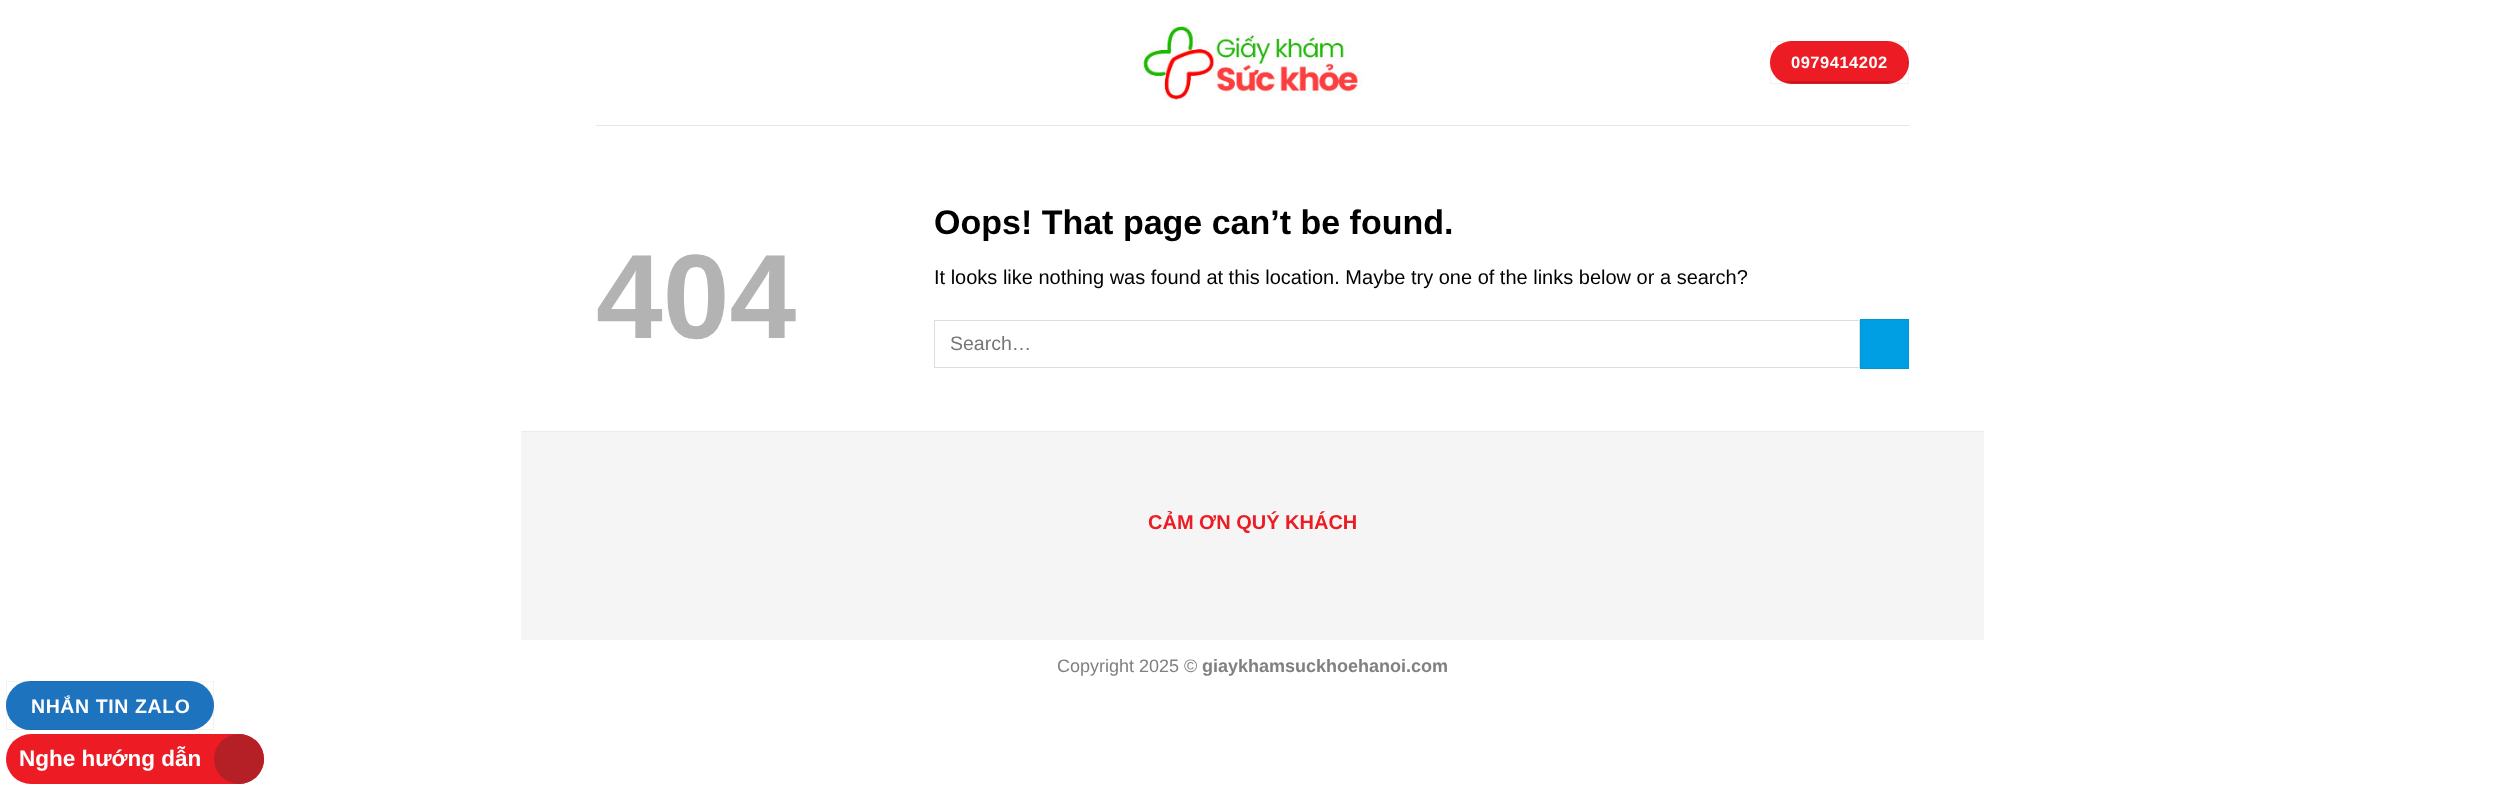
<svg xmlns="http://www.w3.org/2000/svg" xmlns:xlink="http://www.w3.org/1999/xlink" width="2504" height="796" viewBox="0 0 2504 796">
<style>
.cls-1{font:bold 16.5px Liberation Sans;letter-spacing:0.5px;fill:#ffffff}
.cls-2{font:bold 120px Liberation Sans;fill:#b3b3b3}
.cls-3{font:bold 34px Liberation Sans;fill:#000000}
.cls-4{font:20px Liberation Sans;fill:#000000}
.cls-5{font:19.5px Liberation Sans;fill:#757575}
.cls-6{font:bold 20px Liberation Sans;fill:#ed1c24}
.cls-7{font:18px Liberation Sans;fill:#808080}
.cls-8{font:bold 18px Liberation Sans;fill:#808080}
.cls-9{font:bold 19.5px Liberation Sans;letter-spacing:0.6px;fill:#ffffff}
.cls-10{font:bold 22.5px Liberation Sans;fill:#ffffff}
</style>
<rect width="100%" height="100%" fill="#ffffff"/>
<image xlink:href="image0.png" x="1142" y="25" width="221" height="75"/>
<rect fill="#ed1c24" x="1770" y="41" width="139" height="43" rx="21.5"/>
<rect fill="none" stroke="#000000" stroke-opacity="0.05" x="1770.5" y="41.5" width="138" height="42"/>
<rect fill="#e6e6e6" x="596" y="125" width="1313" height="1"/>
<rect fill="none" stroke="#dddddd" x="934.5" y="320.5" width="925" height="47"/>
<rect fill="#009ee2" stroke="#0096d7" x="1860.5" y="319.5" width="48" height="49"/>
<rect fill="#f5f5f5" x="521" y="432" width="1463" height="208"/>
<rect fill="#ebebeb" x="521" y="431" width="1463" height="1"/>
<rect fill="#1e73be" x="6" y="681" width="208" height="49" rx="24.5"/>
<rect fill="none" stroke="#000000" stroke-opacity="0.05" x="6.5" y="681.5" width="207" height="48"/>
<rect fill="#ed1c24" x="6" y="734" width="258" height="50" rx="25"/>
<circle fill="#b52026" cx="239" cy="759" r="25"/>
<text class="cls-1" x="1791" y="68">0979414202</text>
<path fill="#000000" fill-opacity="0.15" fill-rule="evenodd" d="M1907 57V69C1908 65 1908 61 1907 57ZM1897 81H1782C1785 82 1788 83 1791 83H1888C1891 83 1894 82 1897 81Z"/>
<text class="cls-2" x="596" y="338">404</text>
<text class="cls-3" x="934" y="234">Oops! That page can’t be found.</text>
<text class="cls-4" x="934" y="284">It looks like nothing was found at this location. Maybe try one of the links below or a search?</text>
<text class="cls-5" x="950" y="350">Search…</text>
<text class="cls-6" x="1148" y="529">CẢM ƠN QUÝ KHÁCH</text>
<text class="cls-7" x="1057" y="672">Copyright 2025 ©</text>
<text class="cls-8" x="1202" y="672">giaykhamsuckhoehanoi.com</text>
<text class="cls-9" x="31" y="713">NHẮN TIN ZALO</text>
<text class="cls-10" x="19" y="766">Nghe hướng dẫn</text>
</svg>
